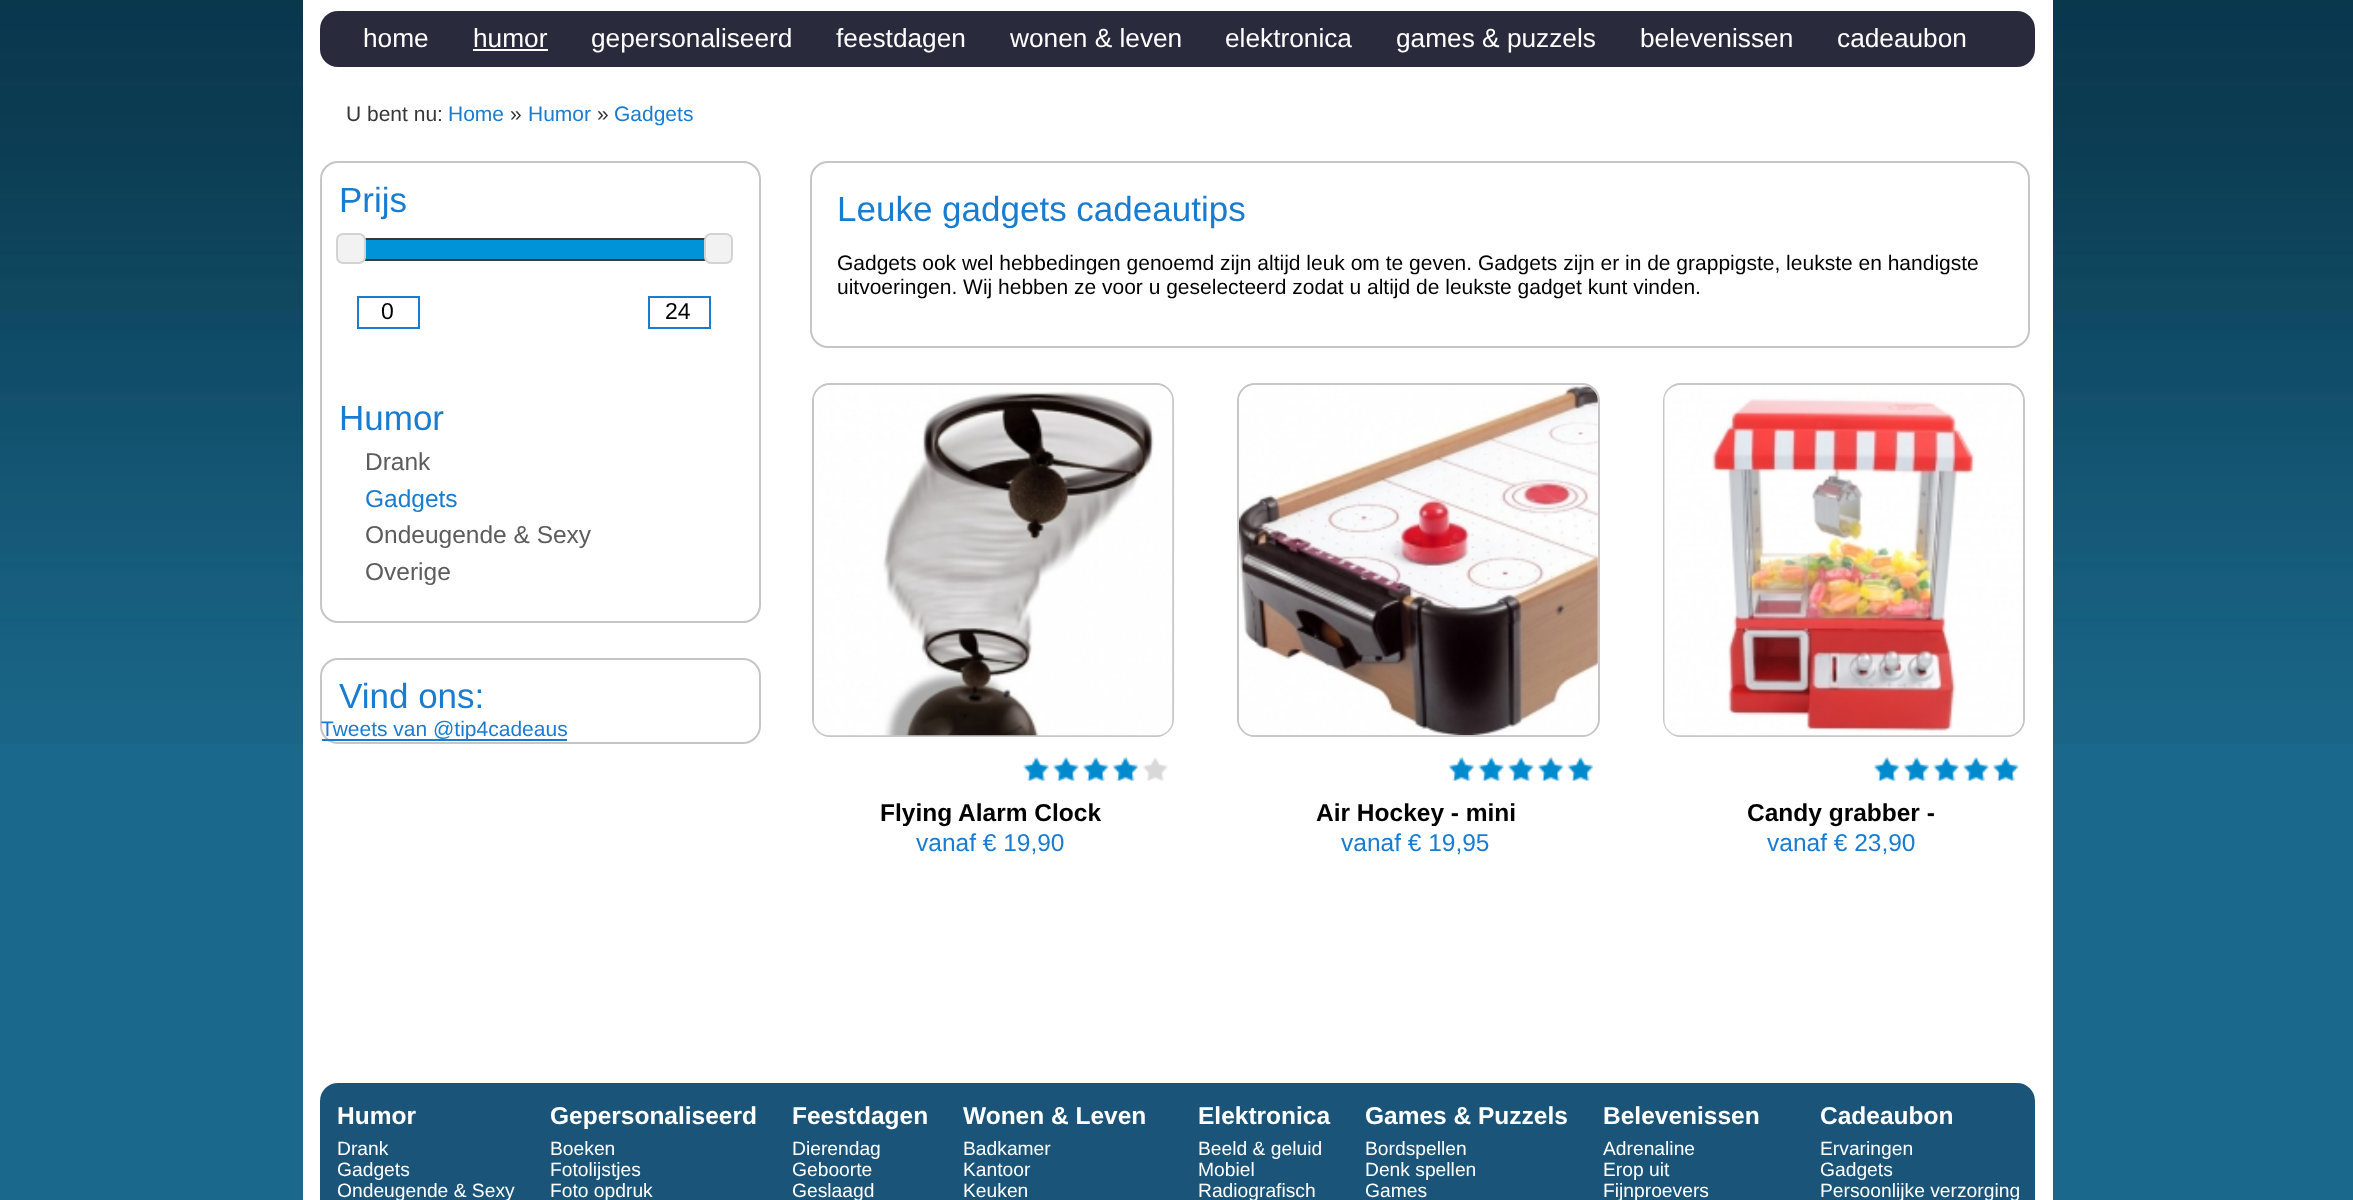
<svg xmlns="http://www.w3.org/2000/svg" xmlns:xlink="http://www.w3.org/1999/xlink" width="2353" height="1200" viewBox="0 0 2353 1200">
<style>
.cls-1{font:26.25px Liberation Sans;fill:#ffffff}
.cls-2{font:21px Liberation Sans;fill:#373737}
.cls-3{font:21px Liberation Sans;fill:#1a7cd0}
.cls-4{font:35px Liberation Sans;fill:#1a7cd0}
.cls-5{font:23px Liberation Sans;fill:#000000}
.cls-6{font:24.5px Liberation Sans;fill:#5d5c5c}
.cls-7{font:24.5px Liberation Sans;fill:#1a7cd0}
.cls-8{font:21px Liberation Sans;fill:#000000}
.cls-9{font:bold 24.5px Liberation Sans;fill:#000000}
.cls-10{font:bold 24.5px Liberation Sans;fill:#ffffff}
.cls-11{font:19.25px Liberation Sans;fill:#ffffff}
</style>
<rect width="100%" height="100%" fill="#1a688c"/>
<image xlink:href="image0.png" x="0" y="0" width="2353" height="744"/>
<rect fill="#ffffff" x="303" y="0" width="1750" height="1200"/>
<rect fill="#292a3b" x="320" y="11" width="1715" height="56" rx="18"/>
<rect fill="#ffffff" x="473" y="49" width="75" height="2"/>
<rect fill="none" stroke="#c7c5c5" stroke-width="2" x="321" y="162" width="439" height="460" rx="17"/>
<rect fill="none" stroke="#373737" stroke-width="2" x="349" y="239" width="369" height="21"/>
<rect fill="#0093d8" x="365" y="240" width="340" height="19"/>
<rect fill="#f2f2f2" stroke="#d3d3d3" stroke-width="2" x="337" y="234" width="28" height="29" rx="6"/>
<rect fill="#f2f2f2" stroke="#d3d3d3" stroke-width="2" x="705" y="234" width="27" height="29" rx="6"/>
<rect fill="none" stroke="#1a7cd0" stroke-width="2" x="358" y="297" width="61" height="31"/>
<rect fill="none" stroke="#1a7cd0" stroke-width="2" x="649" y="297" width="61" height="31"/>
<rect fill="none" stroke="#c7c5c5" stroke-width="2" x="321" y="659" width="439" height="84" rx="17"/>
<rect fill="#1a7cd0" x="322" y="739" width="245" height="2"/>
<rect fill="none" stroke="#c7c5c5" stroke-width="2" x="811" y="162" width="1218" height="185" rx="17"/>
<rect fill="none" stroke="#c7c5c5" stroke-width="2" x="813" y="384" width="360" height="352" rx="17"/>
<image xlink:href="image1.png" x="814" y="385" width="359" height="351"/>
<image xlink:href="image2.png" x="1023" y="756" width="27" height="25"/>
<image xlink:href="image3.png" x="1053" y="756" width="26" height="25"/>
<image xlink:href="image4.png" x="1082" y="756" width="27" height="25"/>
<image xlink:href="image5.png" x="1112" y="756" width="27" height="25"/>
<image xlink:href="image6.png" x="1142" y="757" width="26" height="24"/>
<rect fill="none" stroke="#c7c5c5" stroke-width="2" x="1238" y="384" width="361" height="352" rx="17"/>
<image xlink:href="image7.png" x="1239" y="385" width="359" height="351"/>
<image xlink:href="image5.png" x="1448" y="756" width="27" height="25"/>
<image xlink:href="image8.png" x="1478" y="756" width="27" height="25"/>
<image xlink:href="image3.png" x="1508" y="756" width="26" height="25"/>
<image xlink:href="image9.png" x="1537" y="756" width="27" height="25"/>
<image xlink:href="image10.png" x="1567" y="756" width="27" height="25"/>
<rect fill="none" stroke="#c7c5c5" stroke-width="2" x="1664" y="384" width="360" height="352" rx="17"/>
<image xlink:href="image11.png" x="1664" y="385" width="359" height="351"/>
<image xlink:href="image4.png" x="1873" y="756" width="27" height="25"/>
<image xlink:href="image5.png" x="1903" y="756" width="27" height="25"/>
<image xlink:href="image8.png" x="1933" y="756" width="27" height="25"/>
<image xlink:href="image12.png" x="1963" y="756" width="26" height="25"/>
<image xlink:href="image4.png" x="1992" y="756" width="27" height="25"/>
<rect fill="#1b5479" x="320" y="1083" width="1715" height="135" rx="18"/>
<text class="cls-1" x="363" y="47">home</text>
<text class="cls-1" x="473" y="47">humor</text>
<text class="cls-1" x="591" y="47">gepersonaliseerd</text>
<text class="cls-1" x="836" y="47">feestdagen</text>
<text class="cls-1" x="1010" y="47">wonen &amp; leven</text>
<text class="cls-1" x="1225" y="47">elektronica</text>
<text class="cls-1" x="1396" y="47">games &amp; puzzels</text>
<text class="cls-1" x="1640" y="47">belevenissen</text>
<text class="cls-1" x="1837" y="47">cadeaubon</text>
<text class="cls-2" x="346" y="121">U bent nu:</text>
<text class="cls-3" x="448" y="121">Home</text>
<text class="cls-2" x="510" y="121">»</text>
<text class="cls-3" x="528" y="121">Humor</text>
<text class="cls-2" x="597" y="121">»</text>
<text class="cls-3" x="614" y="121">Gadgets</text>
<text class="cls-4" x="339" y="212">Prijs</text>
<text class="cls-5" x="381" y="319">0</text>
<text class="cls-5" x="665" y="319">24</text>
<text class="cls-4" x="339" y="430">Humor</text>
<text class="cls-6" x="365" y="470">Drank</text>
<text class="cls-7" x="365" y="507">Gadgets</text>
<text class="cls-6"><tspan x="365" y="543">Ondeugende &amp; Sexy</tspan><tspan x="365" y="580">Overige</tspan></text>
<text class="cls-4" x="339" y="708">Vind ons:</text>
<text class="cls-3" x="321" y="736">Tweets van @tip4cadeaus</text>
<text class="cls-4" x="837" y="221">Leuke gadgets cadeautips</text>
<text class="cls-8"><tspan x="837" y="270">Gadgets ook wel hebbedingen genoemd zijn altijd leuk om te geven. Gadgets zijn er in de grappigste, leukste en handigste</tspan><tspan x="837" y="294">uitvoeringen. Wij hebben ze voor u geselecteerd zodat u altijd de leukste gadget kunt vinden.</tspan></text>
<text class="cls-9" x="880" y="821">Flying Alarm Clock</text>
<text class="cls-7" x="916" y="851">vanaf € 19,90</text>
<text class="cls-9" x="1316" y="821">Air Hockey - mini</text>
<text class="cls-7" x="1341" y="851">vanaf € 19,95</text>
<text class="cls-9" x="1747" y="821">Candy grabber -</text>
<text class="cls-7" x="1767" y="851">vanaf € 23,90</text>
<text class="cls-10" x="337" y="1124">Humor</text>
<text class="cls-11"><tspan x="337" y="1155">Drank</tspan><tspan x="337" y="1176">Gadgets</tspan><tspan x="337" y="1197">Ondeugende &amp; Sexy</tspan></text>
<text class="cls-10" x="550" y="1124">Gepersonaliseerd</text>
<text class="cls-11"><tspan x="550" y="1155">Boeken</tspan><tspan x="550" y="1176">Fotolijstjes</tspan><tspan x="550" y="1197">Foto opdruk</tspan></text>
<text class="cls-10" x="792" y="1124">Feestdagen</text>
<text class="cls-11"><tspan x="792" y="1155">Dierendag</tspan><tspan x="792" y="1176">Geboorte</tspan><tspan x="792" y="1197">Geslaagd</tspan></text>
<text class="cls-10" x="963" y="1124">Wonen &amp; Leven</text>
<text class="cls-11"><tspan x="963" y="1155">Badkamer</tspan><tspan x="963" y="1176">Kantoor</tspan><tspan x="963" y="1197">Keuken</tspan></text>
<text class="cls-10" x="1198" y="1124">Elektronica</text>
<text class="cls-11"><tspan x="1198" y="1155">Beeld &amp; geluid</tspan><tspan x="1198" y="1176">Mobiel</tspan><tspan x="1198" y="1197">Radiografisch</tspan></text>
<text class="cls-10" x="1365" y="1124">Games &amp; Puzzels</text>
<text class="cls-11"><tspan x="1365" y="1155">Bordspellen</tspan><tspan x="1365" y="1176">Denk spellen</tspan><tspan x="1365" y="1197">Games</tspan></text>
<text class="cls-10" x="1603" y="1124">Belevenissen</text>
<text class="cls-11"><tspan x="1603" y="1155">Adrenaline</tspan><tspan x="1603" y="1176">Erop uit</tspan><tspan x="1603" y="1197">Fijnproevers</tspan></text>
<text class="cls-10" x="1820" y="1124">Cadeaubon</text>
<text class="cls-11"><tspan x="1820" y="1155">Ervaringen</tspan><tspan x="1820" y="1176">Gadgets</tspan><tspan x="1820" y="1197">Persoonlijke verzorging</tspan></text>
</svg>
